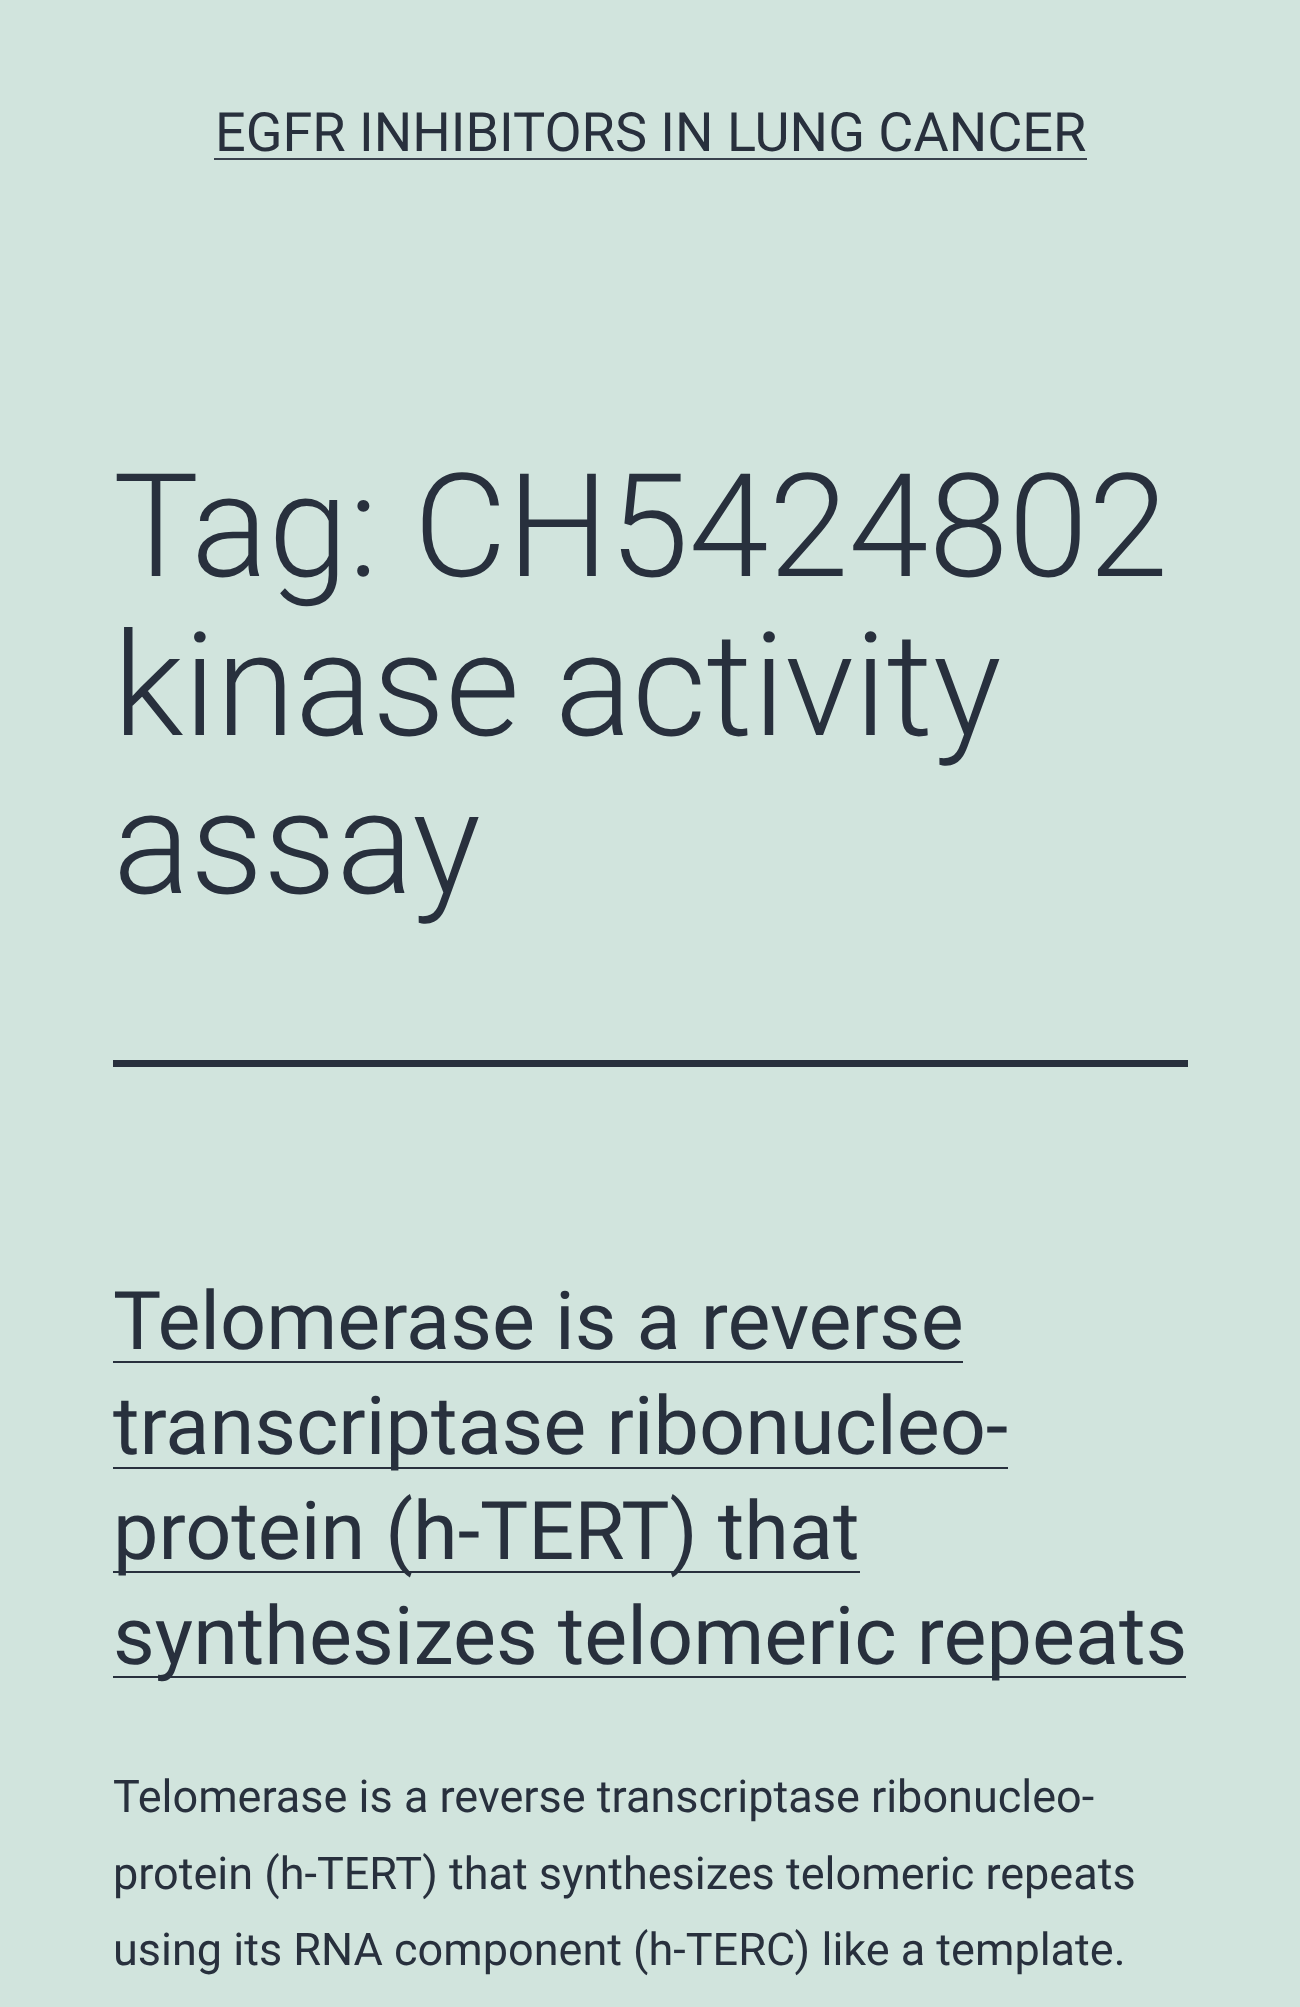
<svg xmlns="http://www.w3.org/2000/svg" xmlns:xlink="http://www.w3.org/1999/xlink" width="1300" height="2007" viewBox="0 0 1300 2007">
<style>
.cls-1{font:54px Roboto;fill:#28303d}
.cls-2{font:300 144px Roboto;fill:#28303d}
.cls-3{font:81px Roboto;fill:#28303d}
.cls-4{font:45px Roboto;fill:#28303d}
</style>
<rect width="100%" height="100%" fill="#d1e4dd"/>
<rect fill="#39414d" x="214" y="158" width="873" height="2"/>
<rect fill="#28303d" x="113" y="1060" width="1075" height="7"/>
<rect fill="#28303d" x="113" y="1361" width="850" height="2"/>
<rect fill="#28303d" x="113" y="1467" width="895" height="2"/>
<rect fill="#28303d" x="113" y="1571" width="747" height="2"/>
<rect fill="#28303d" x="113" y="1676" width="1073" height="2"/>
<text class="cls-1" x="215" y="151">EGFR INHIBITORS IN LUNG CANCER</text>
<text class="cls-2"><tspan x="113" y="576">Tag: CH5424802</tspan><tspan x="113" y="735">kinase activity</tspan><tspan x="113" y="893">assay</tspan></text>
<text class="cls-3"><tspan x="113" y="1349">Telomerase is a reverse</tspan><tspan x="113" y="1454">transcriptase ribonucleo-</tspan><tspan x="113" y="1559">protein (h-TERT) that</tspan><tspan x="113" y="1664">synthesizes telomeric repeats</tspan></text>
<text class="cls-4"><tspan x="113" y="1812">Telomerase is a reverse transcriptase ribonucleo-</tspan><tspan x="113" y="1889">protein (h-TERT) that synthesizes telomeric repeats</tspan><tspan x="113" y="1965">using its RNA component (h-TERC) like a template.</tspan></text>
</svg>
